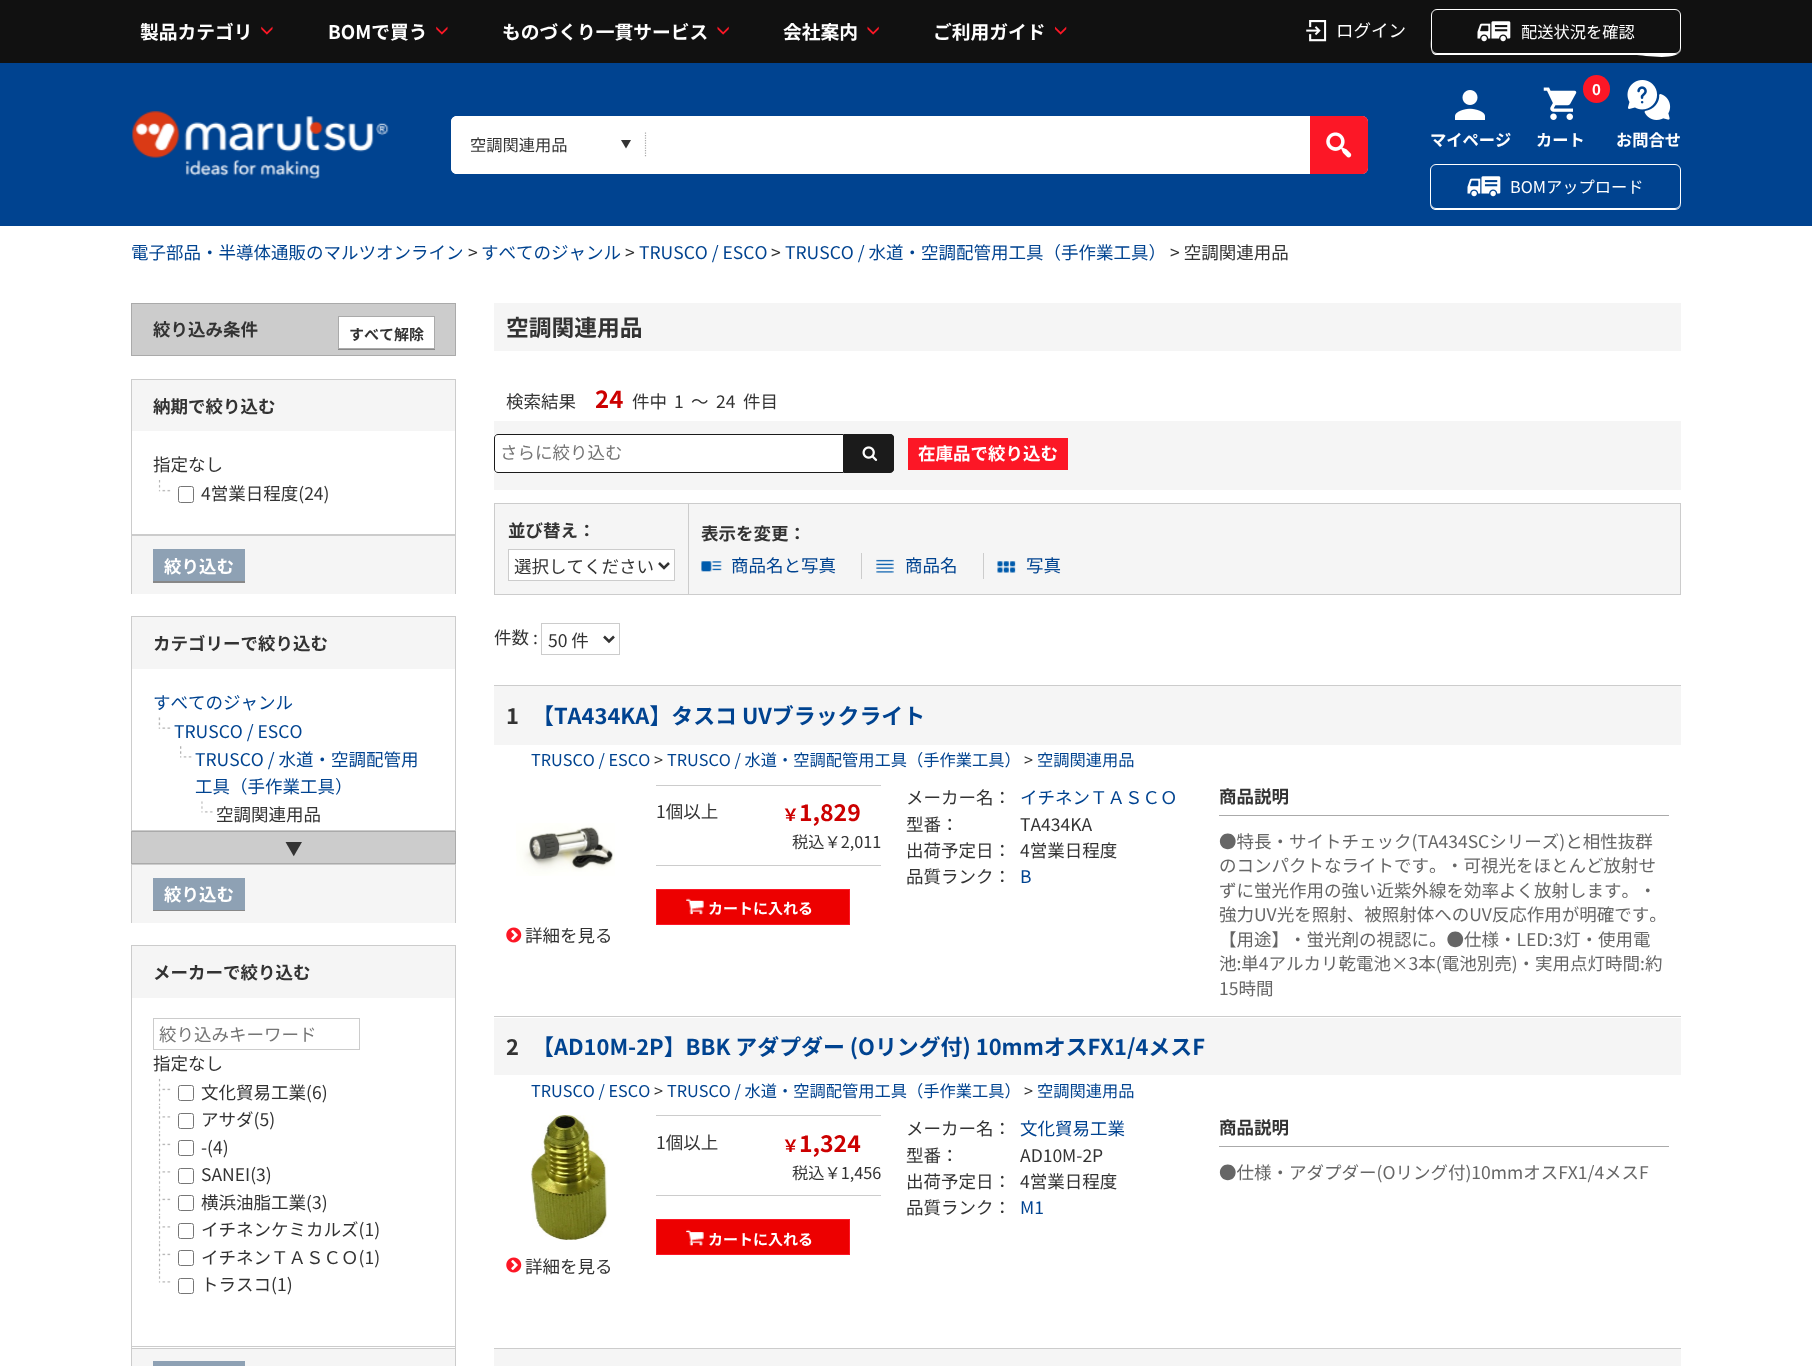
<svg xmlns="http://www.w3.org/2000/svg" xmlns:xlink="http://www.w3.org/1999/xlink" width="1812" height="1366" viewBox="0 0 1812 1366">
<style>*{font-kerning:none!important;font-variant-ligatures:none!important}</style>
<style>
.cls-1{font:bold 18.75px Noto Sans JP;fill:#ffffff}
.cls-2{font:17.5px Noto Sans JP;fill:#ffffff}
.cls-3{font:16.25px Noto Sans JP;fill:#ffffff}
.cls-4{font:16.25px Noto Sans JP;fill:#333333}
.cls-5{font:bold 16.25px Noto Sans JP;fill:#ffffff}
.cls-6{font:bold 15px Noto Sans JP;fill:#ffffff}
.cls-7{font:17.5px Noto Sans JP;fill:#004390}
.cls-8{font:17.5px Noto Sans JP;fill:#333333}
.cls-9{font:bold 17.5px Noto Sans JP;fill:#333333}
.cls-10{font:bold 15px Noto Sans JP;fill:#333333}
.cls-11{font:bold 17.5px Noto Sans JP;fill:#ffffff}
.cls-12{font:17.5px Noto Sans JP;fill:#757575}
.cls-13{font:bold 22.75px Noto Sans JP;fill:#333333}
.cls-14{font:bold 24px Noto Sans JP;fill:#cc0000}
.cls-15{font:bold 21.9px Noto Sans JP;fill:#333333}
.cls-16{font:bold 21.9px Noto Sans JP;fill:#004390}
.cls-17{font:16.25px Noto Sans JP;fill:#004390}
.cls-18{font:bold 17px Noto Sans JP;fill:#cc0000}
.cls-19{font:bold 23px Noto Sans JP;fill:#cc0000}
.cls-20{font:17.5px Noto Sans JP;fill:#666666}
</style>
<rect width="100%" height="100%" fill="#ffffff"/>
<rect fill="#111111" x="0" y="0" width="1812" height="63"/>
<image xlink:href="image0.png" x="261" y="26" width="12" height="9"/>
<image xlink:href="image0.png" x="436" y="26" width="12" height="9"/>
<image xlink:href="image1.png" x="717" y="26" width="12" height="9"/>
<image xlink:href="image1.png" x="867" y="26" width="12" height="9"/>
<image xlink:href="image2.png" x="1055" y="26" width="12" height="9"/>
<image xlink:href="image3.png" x="1306" y="20" width="21" height="22"/>
<path fill="#ffffff" d="M1431 14V38C1431 43 1429 55 1437 55H1635C1643 55 1680 62 1681 49C1680 52 1678 54 1675 54H1438C1434 54 1431 51 1431 48Z"/>
<rect fill="none" stroke="#ffffff" x="1431.5" y="9.5" width="249" height="44" rx="5.5"/>
<image xlink:href="image4.png" x="1477" y="21" width="34" height="21"/>
<rect fill="#004390" x="0" y="63" width="1812" height="163"/>
<image xlink:href="image5.png" x="132" y="111" width="257" height="68"/>
<rect fill="#ffffff" x="451" y="116" width="917" height="58" rx="6"/>
<path fill="#ffffff" d="M457 116H645V174H457C453.5 174 451 171.5 451 168V122C451 118.5 453.5 116 457 116Z"/>
<path fill="#333333" d="M626 148.5L621 140H631Z"/>
<path fill="none" stroke="#aaaaaa" stroke-width="1.2" stroke-dasharray="1.25 1.25" d="M645.5 132.5V157.5"/>
<path fill="#fc1726" d="M1310 116H1362C1365.5 116 1368 118.5 1368 122V168C1368 171.5 1365.5 174 1362 174H1310Z"/>
<image xlink:href="image6.png" x="1326" y="132" width="26" height="26"/>
<image xlink:href="image7.png" x="1455" y="90" width="30" height="30"/>
<rect fill="#fc1726" x="1583" y="75" width="27" height="28" rx="13.5"/>
<image xlink:href="image8.png" x="1543" y="87" width="34" height="33"/>
<image xlink:href="image9.png" x="1627" y="80" width="44" height="40"/>
<path fill="#ffffff" d="M1430 202C1430 206 1431 209 1435 210H1675C1678 210 1681 207 1681 204C1680 207 1678 209 1675 209H1436C1433 209 1430 206 1430 202Z"/>
<rect fill="none" stroke="#ffffff" x="1430.5" y="164.5" width="250" height="44" rx="5.5"/>
<image xlink:href="image10.png" x="1467" y="176" width="34" height="21"/>
<rect fill="#cccccc" stroke="#aaaaaa" x="131.5" y="303.5" width="324" height="52"/>
<rect fill="#888888" x="338" y="349" width="97" height="1"/>
<rect fill="#ffffff" stroke="#aaaaaa" x="338.5" y="316.5" width="96" height="32"/>
<rect fill="#f5f5f5" x="132" y="380" width="323" height="51"/>
<rect fill="#cccccc" x="131" y="379" width="325" height="1"/>
<rect fill="#cccccc" x="455" y="379" width="1" height="156"/>
<rect fill="#cccccc" x="131" y="379" width="1" height="52"/>
<rect fill="#cccccc" x="131" y="534" width="325" height="2"/>
<rect fill="#cccccc" x="131" y="431" width="1" height="163"/>
<image xlink:href="image11.png" x="158" y="480" width="13" height="12"/>
<rect fill="none" stroke="#767676" x="178.5" y="486.5" width="15" height="16" rx="2"/>
<rect fill="#f5f5f5" x="132" y="536" width="323" height="58"/>
<rect fill="#cccccc" x="455" y="535" width="1" height="59"/>
<rect fill="#888888" x="153" y="581" width="92" height="2"/>
<rect fill="#8ea1b4" x="153" y="549" width="92" height="32"/>
<rect fill="#f5f5f5" x="132" y="617" width="323" height="52"/>
<rect fill="#cccccc" x="131" y="616" width="325" height="1"/>
<rect fill="#cccccc" x="455" y="616" width="1" height="215"/>
<rect fill="#cccccc" x="131" y="616" width="1" height="53"/>
<rect fill="#cccccc" x="131" y="830" width="325" height="1"/>
<rect fill="#cccccc" x="131" y="669" width="1" height="162"/>
<image xlink:href="image12.png" x="158" y="717" width="13" height="12"/>
<image xlink:href="image13.png" x="180" y="746" width="12" height="12"/>
<image xlink:href="image14.png" x="201" y="801" width="12" height="12"/>
<rect fill="#cccccc" stroke="#aaaaaa" x="131.5" y="831.5" width="324" height="32"/>
<rect fill="#f5f5f5" x="132" y="865" width="323" height="58"/>
<rect fill="#cccccc" x="131" y="864" width="325" height="1"/>
<rect fill="#cccccc" x="455" y="864" width="1" height="59"/>
<rect fill="#cccccc" x="131" y="864" width="1" height="59"/>
<rect fill="#888888" x="153" y="910" width="92" height="1"/>
<rect fill="#8ea1b4" x="153" y="878" width="92" height="32"/>
<rect fill="#f5f5f5" x="132" y="946" width="323" height="52"/>
<rect fill="#cccccc" x="131" y="945" width="325" height="1"/>
<rect fill="#cccccc" x="455" y="945" width="1" height="53"/>
<rect fill="#cccccc" x="131" y="945" width="1" height="53"/>
<rect fill="#f5f5f5" x="132" y="1349" width="323" height="17"/>
<rect fill="#cccccc" x="131" y="1348" width="325" height="1"/>
<rect fill="#cccccc" x="455" y="998" width="1" height="368"/>
<rect fill="#cccccc" x="131" y="1348" width="1" height="18"/>
<rect fill="#8ea1b4" x="153" y="1361" width="92" height="5"/>
<rect fill="#cccccc" x="131" y="1346" width="325" height="1"/>
<rect fill="#cccccc" x="131" y="998" width="1" height="350"/>
<rect fill="none" stroke="#cccccc" x="153.5" y="1018.5" width="206" height="31"/>
<image xlink:href="image15.png" x="158" y="1078" width="13" height="27"/>
<rect fill="none" stroke="#767676" x="178.5" y="1085.5" width="15" height="15" rx="2"/>
<image xlink:href="image16.png" x="158" y="1106" width="13" height="27"/>
<rect fill="none" stroke="#767676" x="178.5" y="1113.5" width="15" height="15" rx="2"/>
<image xlink:href="image15.png" x="158" y="1133" width="13" height="27"/>
<rect fill="none" stroke="#767676" x="178.5" y="1140.5" width="15" height="15" rx="2"/>
<image xlink:href="image17.png" x="158" y="1161" width="13" height="27"/>
<rect fill="none" stroke="#767676" x="178.5" y="1168.5" width="15" height="15" rx="2"/>
<image xlink:href="image18.png" x="158" y="1188" width="13" height="27"/>
<rect fill="none" stroke="#767676" x="178.5" y="1195.5" width="15" height="15" rx="2"/>
<image xlink:href="image17.png" x="158" y="1216" width="13" height="27"/>
<rect fill="none" stroke="#767676" x="178.5" y="1223.5" width="15" height="15" rx="2"/>
<image xlink:href="image18.png" x="158" y="1243" width="13" height="27"/>
<rect fill="none" stroke="#767676" x="178.5" y="1250.5" width="15" height="15" rx="2"/>
<image xlink:href="image19.png" x="158" y="1271" width="13" height="12"/>
<rect fill="none" stroke="#767676" x="178.5" y="1278.5" width="15" height="15" rx="2"/>
<rect fill="#f5f5f5" x="494" y="303" width="1187" height="48"/>
<rect fill="#f5f5f5" x="494" y="421" width="1187" height="69"/>
<path fill="#ffffff" stroke="#1b1b1b" d="M498 434.5H843.5V472.5H498C496 472.5 494.5 471 494.5 469V438C494.5 436 496 434.5 498 434.5Z"/>
<path fill="#1b1b1b" d="M844 434H890C892 434 894 436 894 438V469C894 471 892 473 890 473H844Z"/>
<path fill="#1b1b1b" fill-rule="evenodd" d="M844 434H890C892 434 894 435 894 438V469C894 471 892 472 890 472H844ZM844 435H890C891 435 892 436 892 438V469C892 470 891 471 890 471H844Z"/>
<image xlink:href="image20.png" x="862" y="446" width="16" height="15"/>
<rect fill="#fc1726" x="908" y="438" width="160" height="32"/>
<rect fill="#f5f5f5" stroke="#cccccc" x="494.5" y="503.5" width="1186" height="91"/>
<rect fill="#ffffff" stroke="#cccccc" x="508.5" y="549.5" width="166" height="31"/>
<path fill="none" stroke="#333333" stroke-width="2.5" d="M659 563L664 568L669 563"/>
<rect fill="#cccccc" x="688" y="504" width="1" height="90"/>
<rect fill="#cccccc" x="861" y="553" width="1" height="26"/>
<image xlink:href="image21.png" x="701" y="561" width="21" height="11"/>
<rect fill="#cccccc" x="983" y="553" width="1" height="26"/>
<image xlink:href="image22.png" x="876" y="559" width="18" height="14"/>
<image xlink:href="image23.png" x="997" y="561" width="19" height="12"/>
<rect fill="none" stroke="#cccccc" x="541.5" y="623.5" width="78" height="31"/>
<path fill="none" stroke="#333333" stroke-width="2.5" d="M604 636.5L609 641.5L614 636.5"/>
<rect fill="#cccccc" x="494" y="685" width="1187" height="1"/>
<rect fill="#cccccc" x="494" y="1016" width="1187" height="1"/>
<rect fill="#f5f5f5" x="494" y="686" width="1187" height="59"/>
<rect fill="#cccccc" x="656" y="785" width="225" height="1"/>
<rect fill="#cccccc" x="656" y="865" width="225" height="1"/>
<rect fill="#ed0000" x="657" y="890" width="192" height="34"/>
<image xlink:href="image24.png" x="686" y="898" width="18" height="17"/>
<rect fill="none" stroke="#fc1726" x="656.5" y="889.5" width="193" height="35"/>
<rect fill="#aaaaaa" x="1219" y="815" width="450" height="1"/>
<image xlink:href="image25.png" x="516" y="823" width="99" height="53"/>
<image xlink:href="image26.png" x="506" y="927" width="16" height="16"/>
<rect fill="#cccccc" x="494" y="1348" width="1187" height="1"/>
<rect fill="#f5f5f5" x="494" y="1018" width="1187" height="57"/>
<rect fill="#cccccc" x="656" y="1115" width="225" height="1"/>
<rect fill="#cccccc" x="656" y="1195" width="225" height="1"/>
<rect fill="#ed0000" x="657" y="1220" width="192" height="34"/>
<image xlink:href="image27.png" x="686" y="1229" width="18" height="18"/>
<rect fill="none" stroke="#fc1726" x="656.5" y="1219.5" width="193" height="35"/>
<rect fill="#aaaaaa" x="1219" y="1146" width="450" height="1"/>
<image xlink:href="image28.png" x="530" y="1115" width="78" height="125"/>
<image xlink:href="image26.png" x="506" y="1257" width="16" height="16"/>
<rect fill="#f5f5f5" x="494" y="1349" width="1187" height="17"/>
<text class="cls-1" x="140" y="39">製品カテゴリ</text>
<text class="cls-1" x="328" y="39">BOMで買う</text>
<text class="cls-1" x="502" y="39">ものづくり一貫サービス</text>
<text class="cls-1" x="783" y="39">会社案内</text>
<text class="cls-1" x="933" y="39">ご利用ガイド</text>
<text class="cls-2" x="1336" y="37">ログイン</text>
<text class="cls-3" x="1521" y="38">配送状況を確認</text>
<text class="cls-4" x="470" y="151">空調関連用品</text>
<text class="cls-5" x="1430" y="146">マイページ</text>
<text class="cls-6" x="1592" y="95">0</text>
<text class="cls-5" x="1536" y="146">カート</text>
<text class="cls-5" x="1616" y="146">お問合せ</text>
<text class="cls-3" x="1510" y="193">BOMアップロード</text>
<text class="cls-7" x="131" y="259">電子部品・半導体通販のマルツオンライン</text>
<text class="cls-8" x="468" y="259">&gt;</text>
<text class="cls-7" x="481" y="259">すべてのジャンル</text>
<text class="cls-8" x="625" y="259">&gt;</text>
<text class="cls-7" x="639" y="259">TRUSCO / ESCO</text>
<text class="cls-8" x="771" y="259">&gt;</text>
<text class="cls-7" x="785" y="259">TRUSCO / 水道・空調配管用工具（手作業工具）</text>
<text class="cls-8" x="1170" y="259">&gt; 空調関連用品</text>
<text class="cls-9" x="153" y="336">絞り込み条件</text>
<text class="cls-10" x="349" y="340">すべて解除</text>
<text class="cls-9" x="153" y="413">納期で絞り込む</text>
<text class="cls-8" x="153" y="471">指定なし</text>
<text class="cls-8" x="201" y="500">4営業日程度(24)</text>
<text class="cls-11" x="164" y="573">絞り込む</text>
<text class="cls-9" x="153" y="650">カテゴリーで絞り込む</text>
<text class="cls-7" x="153" y="709">すべてのジャンル</text>
<text class="cls-7" x="174" y="738">TRUSCO / ESCO</text>
<text class="cls-7"><tspan x="195" y="766">TRUSCO / 水道・空調配管用</tspan><tspan x="195" y="793">工具（手作業工具）</tspan></text>
<text class="cls-8" x="216" y="821">空調関連用品</text>
<text class="cls-9" x="285" y="855">▼</text>
<text class="cls-11" x="164" y="901">絞り込む</text>
<text class="cls-9" x="153" y="979">メーカーで絞り込む</text>
<text class="cls-12" x="159" y="1041">絞り込みキーワード</text>
<text class="cls-8" x="153" y="1070">指定なし</text>
<text class="cls-8"><tspan x="201" y="1099">文化貿易工業(6)</tspan><tspan x="201" y="1126">アサダ(5)</tspan><tspan x="201" y="1154">-(4)</tspan><tspan x="201" y="1181">SANEI(3)</tspan><tspan x="201" y="1209">横浜油脂工業(3)</tspan><tspan x="201" y="1236">イチネンケミカルズ(1)</tspan><tspan x="201" y="1264">イチネンＴＡＳＣＯ(1)</tspan><tspan x="201" y="1291">トラスコ(1)</tspan></text>
<text class="cls-13" x="506" y="336">空調関連用品</text>
<text class="cls-8" x="506" y="408">検索結果</text>
<text class="cls-14" x="595" y="408">24</text>
<text class="cls-8" x="632" y="408">件中</text>
<text class="cls-8" x="674" y="408">1</text>
<text class="cls-8" x="691" y="408">～</text>
<text class="cls-8" x="716" y="408">24</text>
<text class="cls-8" x="743" y="408">件目</text>
<text class="cls-12" x="500" y="459">さらに絞り込む</text>
<text class="cls-11" x="918" y="460">在庫品で絞り込む</text>
<text class="cls-9" x="508" y="537">並び替え：</text>
<text class="cls-8" x="514" y="573">選択してください</text>
<text class="cls-9" x="701" y="540">表示を変更：</text>
<text class="cls-7" x="731" y="572">商品名と写真</text>
<text class="cls-7" x="905" y="572">商品名</text>
<text class="cls-7" x="1026" y="572">写真</text>
<text class="cls-8" x="494" y="644">件数 :</text>
<text class="cls-8" x="548" y="647">50 件</text>
<text class="cls-15" x="506" y="724">1</text>
<text class="cls-16" x="532" y="724">【TA434KA】タスコ UVブラックライト</text>
<text class="cls-17" x="531" y="766">TRUSCO / ESCO</text>
<text class="cls-4" x="654" y="766">&gt;</text>
<text class="cls-17" x="667" y="766">TRUSCO / 水道・空調配管用工具（手作業工具）</text>
<text class="cls-4" x="1024" y="766">&gt;</text>
<text class="cls-17" x="1037" y="766">空調関連用品</text>
<text class="cls-8" x="656" y="818">1個以上</text>
<text class="cls-18" x="782" y="821">￥</text>
<text class="cls-19" x="799" y="821">1,829</text>
<text class="cls-4" x="792" y="848">税込￥2,011</text>
<text class="cls-6" x="708" y="914">カートに入れる</text>
<text class="cls-8" x="906" y="804">メーカー名：</text>
<text class="cls-7" x="1020" y="804">イチネンＴＡＳＣＯ</text>
<text class="cls-8" x="906" y="831">型番：</text>
<text class="cls-8" x="1020" y="831">TA434KA</text>
<text class="cls-8" x="906" y="857">出荷予定日：</text>
<text class="cls-8" x="1020" y="857">4営業日程度</text>
<text class="cls-8" x="906" y="883">品質ランク：</text>
<text class="cls-7" x="1020" y="883">B</text>
<text class="cls-9" x="1219" y="803">商品説明</text>
<text class="cls-20"><tspan x="1219" y="848">●特長・サイトチェック(TA434SCシリーズ)と相性抜群</tspan><tspan x="1219" y="872">のコンパクトなライトです。</tspan></text>
<text class="cls-20" x="1446" y="872">・可視光をほとんど放射せ</text>
<text class="cls-20" x="1219" y="897">ずに蛍光作用の強い近紫外線を効率よく放射します。</text>
<text class="cls-20" x="1639" y="897">・</text>
<text class="cls-20"><tspan x="1219" y="921">強力UV光を照射、被照射体へのUV反応作用が明確です。</tspan><tspan x="1219" y="946">【用途】</tspan></text>
<text class="cls-20" x="1289" y="946">・蛍光剤の視認に。●仕様・LED:3灯・使用電</text>
<text class="cls-20"><tspan x="1219" y="970">池:単4アルカリ乾電池×3本(電池別売)・実用点灯時間:約</tspan><tspan x="1219" y="995">15時間</tspan></text>
<text class="cls-8" x="525" y="942">詳細を見る</text>
<text class="cls-15" x="506" y="1055">2</text>
<text class="cls-16" x="532" y="1055">【AD10M-2P】BBK アダプダー (Oリング付) 10mmオスFX1/4メスF</text>
<text class="cls-17" x="531" y="1097">TRUSCO / ESCO</text>
<text class="cls-4" x="654" y="1097">&gt;</text>
<text class="cls-17" x="667" y="1097">TRUSCO / 水道・空調配管用工具（手作業工具）</text>
<text class="cls-4" x="1024" y="1097">&gt;</text>
<text class="cls-17" x="1037" y="1097">空調関連用品</text>
<text class="cls-8" x="656" y="1149">1個以上</text>
<text class="cls-18" x="782" y="1152">￥</text>
<text class="cls-19" x="799" y="1152">1,324</text>
<text class="cls-4" x="792" y="1179">税込￥1,456</text>
<text class="cls-6" x="708" y="1245">カートに入れる</text>
<text class="cls-8" x="906" y="1135">メーカー名：</text>
<text class="cls-7" x="1020" y="1135">文化貿易工業</text>
<text class="cls-8" x="906" y="1162">型番：</text>
<text class="cls-8" x="1020" y="1162">AD10M-2P</text>
<text class="cls-8" x="906" y="1188">出荷予定日：</text>
<text class="cls-8" x="1020" y="1188">4営業日程度</text>
<text class="cls-8" x="906" y="1214">品質ランク：</text>
<text class="cls-7" x="1020" y="1214">M1</text>
<text class="cls-9" x="1219" y="1134">商品説明</text>
<text class="cls-20" x="1219" y="1179">●仕様・アダプダー(Oリング付)10mmオスFX1/4メスF</text>
<text class="cls-8" x="525" y="1273">詳細を見る</text>
</svg>
